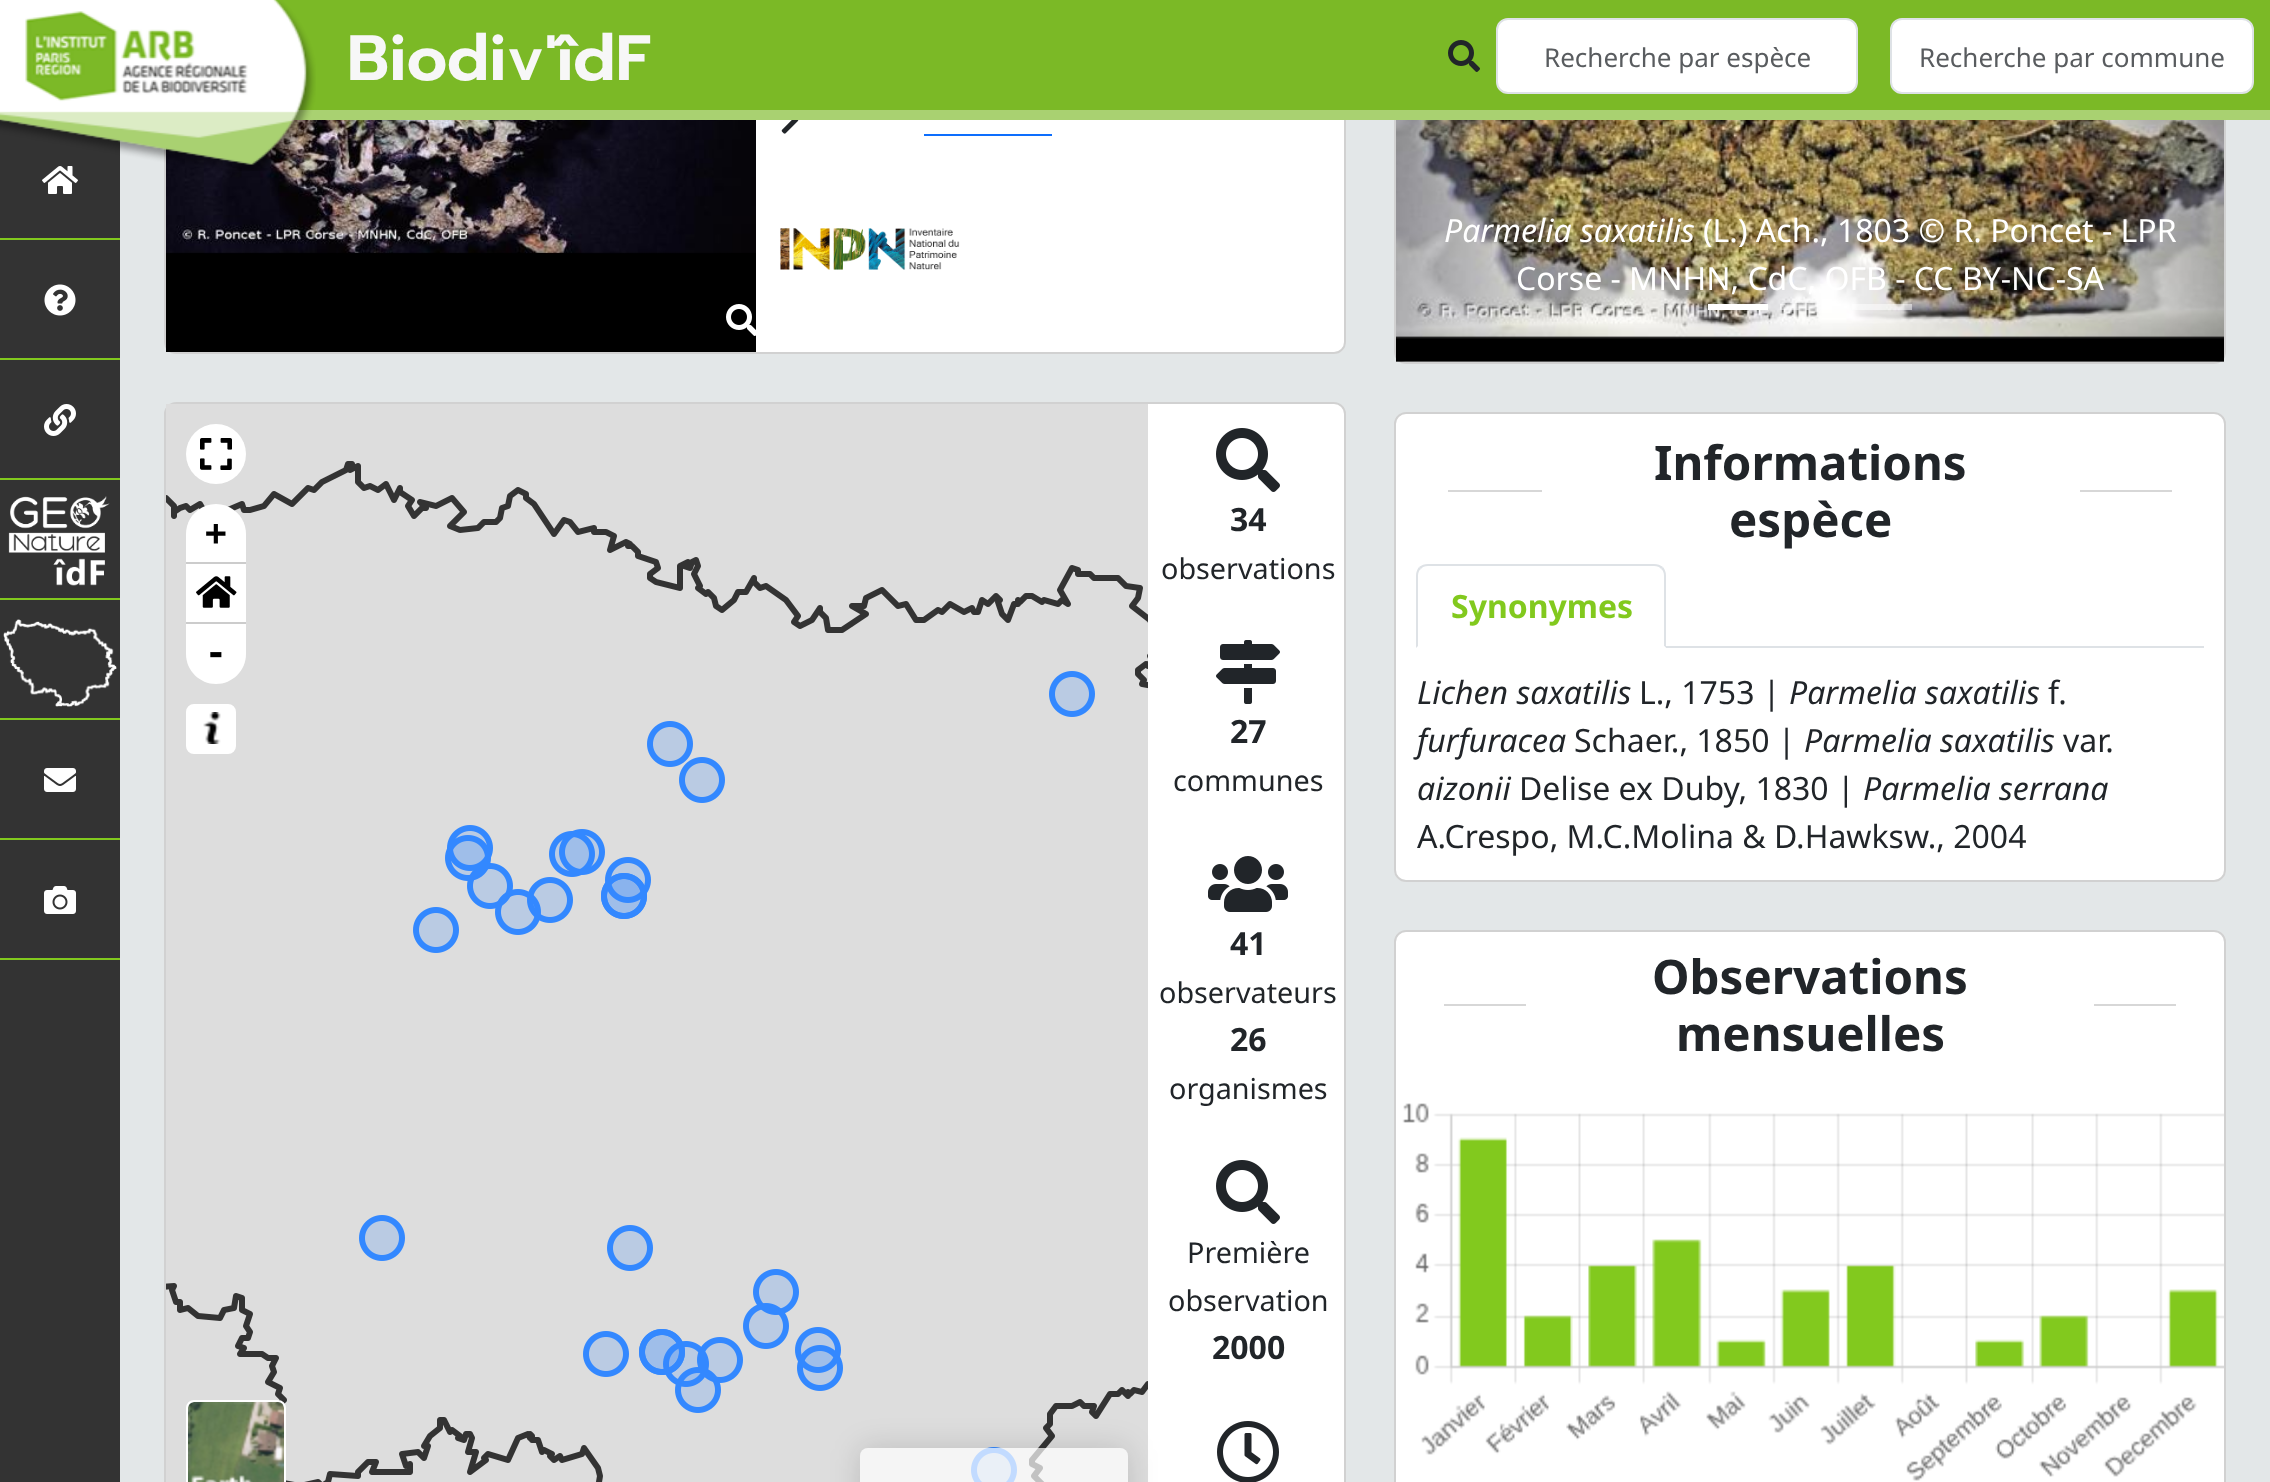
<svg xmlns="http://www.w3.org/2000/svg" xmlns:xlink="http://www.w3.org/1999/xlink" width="2270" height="1482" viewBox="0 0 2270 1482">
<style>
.cls-1{font:600 64px Prompt;fill:#f7f7f7}
.cls-2{font:26px Noto Sans;fill:#595c5f}
.cls-3{font:bold 36px DejaVu Sans Mono;fill:#000000}
.cls-4{font:bold 32px Noto Sans;fill:#212529}
.cls-5{font:28.75px Noto Sans;fill:#212529}
.cls-6{font:italic 32px Noto Sans;fill:#ffffff}
.cls-7{font:32px Noto Sans;fill:#ffffff}
.cls-8{font:bold 47.5px Noto Sans;fill:#212529}
.cls-9{font:bold 32px Noto Sans;fill:#82c91e}
.cls-10{font:italic 32px Noto Sans;fill:#212529}
.cls-11{font:32px Noto Sans;fill:#212529}
</style>
<defs>
<clipPath id="clip1"><path d="M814 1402H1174V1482H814ZM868 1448H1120C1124.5 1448 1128 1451.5 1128 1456V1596C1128 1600.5 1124.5 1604 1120 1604H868C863.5 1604 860 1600.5 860 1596V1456C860 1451.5 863.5 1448 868 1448Z" clip-rule="evenodd"/></clipPath>
</defs>
<rect width="100%" height="100%" fill="#e3e7e8"/>
<rect fill="#ffffff" x="164" y="-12" width="1182" height="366" rx="12"/>
<rect fill="none" stroke="#000000" stroke-opacity="0.18" stroke-width="2" x="165" y="-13" width="1180" height="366" rx="11"/>
<rect fill="#ffffff" x="1394" y="-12" width="832" height="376" rx="12"/>
<rect fill="none" stroke="#000000" stroke-opacity="0.18" stroke-width="2" x="1395" y="-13" width="830" height="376" rx="11"/>
<rect fill="#7bb926" x="272" y="0" width="1998" height="110"/>
<rect fill="#a9d171" x="0" y="110" width="2270" height="10"/>
<rect fill="#333333" x="0" y="120" width="120" height="1362"/>
<image xlink:href="image2.png" x="42" y="166" width="36" height="28"/>
<image xlink:href="image9.png" x="166" y="120" width="590" height="232"/>
<image xlink:href="image0.png" x="0" y="0" width="316" height="171"/>
<image xlink:href="image1.png" x="1448" y="40" width="32" height="32"/>
<rect fill="#ffffff" stroke="#dee2e6" stroke-width="2" x="1497" y="19" width="360" height="74" rx="11"/>
<rect fill="#ffffff" stroke="#dee2e6" stroke-width="2" x="1891" y="19" width="362" height="74" rx="11"/>
<rect fill="#82c91e" x="0" y="238" width="120" height="2"/>
<rect fill="#82c91e" x="0" y="358" width="120" height="2"/>
<image xlink:href="image3.png" x="44" y="284" width="32" height="32"/>
<rect fill="#82c91e" x="0" y="478" width="120" height="2"/>
<image xlink:href="image4.png" x="44" y="404" width="32" height="32"/>
<rect fill="#82c91e" x="0" y="598" width="120" height="2"/>
<image xlink:href="image5.png" x="8" y="496" width="102" height="90"/>
<rect fill="#82c91e" x="0" y="718" width="120" height="2"/>
<image xlink:href="image6.png" x="3" y="619" width="114" height="88"/>
<rect fill="#82c91e" x="0" y="838" width="120" height="2"/>
<image xlink:href="image7.png" x="44" y="768" width="32" height="24"/>
<rect fill="#82c91e" x="0" y="958" width="120" height="2"/>
<image xlink:href="image8.png" x="44" y="886" width="32" height="28"/>
<image xlink:href="image10.png" x="726" y="304" width="30" height="32"/>
<image xlink:href="image11.png" x="781" y="120" width="18" height="14"/>
<rect fill="#0d6efd" x="924" y="134" width="128" height="2"/>
<image xlink:href="image12.png" x="780" y="228" width="180" height="42"/>
<rect fill="#ffffff" x="164" y="402" width="1182" height="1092" rx="12"/>
<rect fill="none" stroke="#000000" stroke-opacity="0.18" stroke-width="2" x="165" y="403" width="1180" height="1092" rx="11"/>
<rect fill="#dddddd" x="166" y="404" width="982" height="1078"/>
<image xlink:href="image13.png" x="166" y="461" width="982" height="1021"/>
<circle fill="#ffffff" cx="216" cy="454" r="30"/>
<image xlink:href="image14.png" x="200" y="438" width="32" height="32"/>
<path fill="#ffffff" d="M216 504C232.5 504 246 517.5 246 534V564H186V534C186 517.5 199.5 504 216 504Z"/>
<rect fill="#cccccc" x="186" y="562" width="60" height="2"/>
<rect fill="#ffffff" x="186" y="564" width="60" height="58"/>
<rect fill="#cccccc" x="186" y="622" width="60" height="2"/>
<image xlink:href="image15.png" x="196" y="576" width="41" height="32"/>
<path fill="#ffffff" d="M186 624H246V654C246 670.5 232.5 684 216 684C199.5 684 186 670.5 186 654Z"/>
<rect fill="#ffffff" stroke="#ffffff" stroke-width="2" x="187" y="705" width="48" height="48" rx="7"/>
<image xlink:href="image16.png" x="203" y="712" width="18" height="32"/>
<image xlink:href="image17.png" x="188" y="1402" width="96" height="80"/>
<rect fill="none" stroke="#ffffff" stroke-width="2" x="187" y="1401" width="98" height="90" rx="7"/>
<g clip-path="url(#clip1)">
<rect fill="#000000" fill-opacity="0.14" filter="blur(15px)" x="860" y="1448" width="268" height="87" rx="8"/>
</g>
<rect fill="#ffffff" fill-opacity="0.7" x="860" y="1448" width="268" height="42" rx="8"/>
<image xlink:href="image18.png" x="1216" y="428" width="64" height="64"/>
<image xlink:href="image19.png" x="1216" y="640" width="64" height="64"/>
<image xlink:href="image20.png" x="1208" y="856" width="80" height="56"/>
<image xlink:href="image18.png" x="1216" y="1160" width="64" height="64"/>
<image xlink:href="image21.png" x="1217" y="1421" width="62" height="61"/>
<image xlink:href="image22.png" x="1396" y="120" width="828" height="242"/>
<rect fill="#ffffff" x="1708" y="304" width="60" height="6"/>
<rect fill="#ffffff" fill-opacity="0.5" x="1780" y="304" width="40" height="6"/>
<rect fill="#ffffff" fill-opacity="0.5" x="1852" y="304" width="60" height="6"/>
<rect fill="#ffffff" x="1394" y="412" width="832" height="470" rx="12"/>
<rect fill="none" stroke="#000000" stroke-opacity="0.18" stroke-width="2" x="1395" y="413" width="830" height="468" rx="11"/>
<rect fill="#d7d7d7" x="1448" y="490" width="94" height="2"/>
<rect fill="#d7d7d7" x="2080" y="490" width="92" height="2"/>
<rect fill="#dee2e6" x="1666" y="646" width="538" height="2"/>
<path fill="#dee2e6" d="M1428 564C1424 564 1422 565 1419 567L1421 569C1422 567 1425 566 1428 566H1654C1657 566 1660 567 1661 569L1663 567C1660 565 1658 564 1654 564Z"/>
<path fill="#dee2e6" d="M1666 648V576C1666 572 1665 570 1663 567L1661 569C1663 570 1664 573 1664 576V646Z"/>
<path fill="#ffffff" d="M1666 648L1664 646H1418L1416 648Z"/>
<path fill="#dee2e6" d="M1416 648L1418 646V576C1418 573 1419 570 1421 569L1419 567C1417 570 1416 572 1416 576Z"/>
<rect fill="#ffffff" x="1394" y="930" width="832" height="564" rx="12"/>
<rect fill="none" stroke="#000000" stroke-opacity="0.18" stroke-width="2" x="1395" y="931" width="830" height="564" rx="11"/>
<rect fill="#d7d7d7" x="1444" y="1004" width="82" height="2"/>
<rect fill="#d7d7d7" x="2094" y="1004" width="82" height="2"/>
<image xlink:href="image23.png" x="1402" y="1103" width="822" height="378"/>
<text class="cls-1" x="347" y="80">Biodiv'îdF</text>
<text class="cls-2" x="1544" y="67">Recherche par espèce</text>
<text class="cls-2" x="1919" y="67">Recherche par commune</text>
<text class="cls-3" x="205" y="545">+</text>
<text class="cls-3" x="205" y="665">-</text>
<text class="cls-4" x="1230" y="531">34</text>
<text class="cls-5" x="1161" y="579">observations</text>
<text class="cls-4" x="1230" y="743">27</text>
<text class="cls-5" x="1173" y="791">communes</text>
<text class="cls-4" x="1230" y="955">41</text>
<text class="cls-5" x="1159" y="1003">observateurs</text>
<text class="cls-4" x="1230" y="1051">26</text>
<text class="cls-5" x="1169" y="1099">organismes</text>
<text class="cls-5" x="1187" y="1263">Première</text>
<text class="cls-5" x="1168" y="1311">observation</text>
<text class="cls-4" x="1212" y="1359">2000</text>
<text class="cls-6" x="1444" y="242">Parmelia saxatilis</text>
<text class="cls-7" x="1703" y="242">(L.) Ach., 1803 © R. Poncet - LPR</text>
<text class="cls-7" x="1516" y="290">Corse - MNHN, CdC, OFB - CC BY-NC-SA</text>
<text class="cls-8" x="1654" y="480">Informations</text>
<text class="cls-8" x="1729" y="537">espèce</text>
<text class="cls-9" x="1451" y="618">Synonymes</text>
<text class="cls-10" x="1417" y="704">Lichen saxatilis</text>
<text class="cls-11" x="1639" y="704">L., 1753 |</text>
<text class="cls-10" x="1789" y="704">Parmelia saxatilis</text>
<text class="cls-11" x="2048" y="704">f.</text>
<text class="cls-10" x="1417" y="752">furfuracea</text>
<text class="cls-11" x="1574" y="752">Schaer., 1850 |</text>
<text class="cls-10" x="1804" y="752">Parmelia saxatilis</text>
<text class="cls-11" x="2063" y="752">var.</text>
<text class="cls-10" x="1417" y="800">aizonii</text>
<text class="cls-11" x="1519" y="800">Delise ex Duby, 1830 |</text>
<text class="cls-10" x="1863" y="800">Parmelia serrana</text>
<text class="cls-11" x="1417" y="848">A.Crespo, M.C.Molina &amp; D.Hawksw., 2004</text>
<text class="cls-8" x="1652" y="994">Observations</text>
<text class="cls-8" x="1676" y="1051">mensuelles</text>
</svg>
